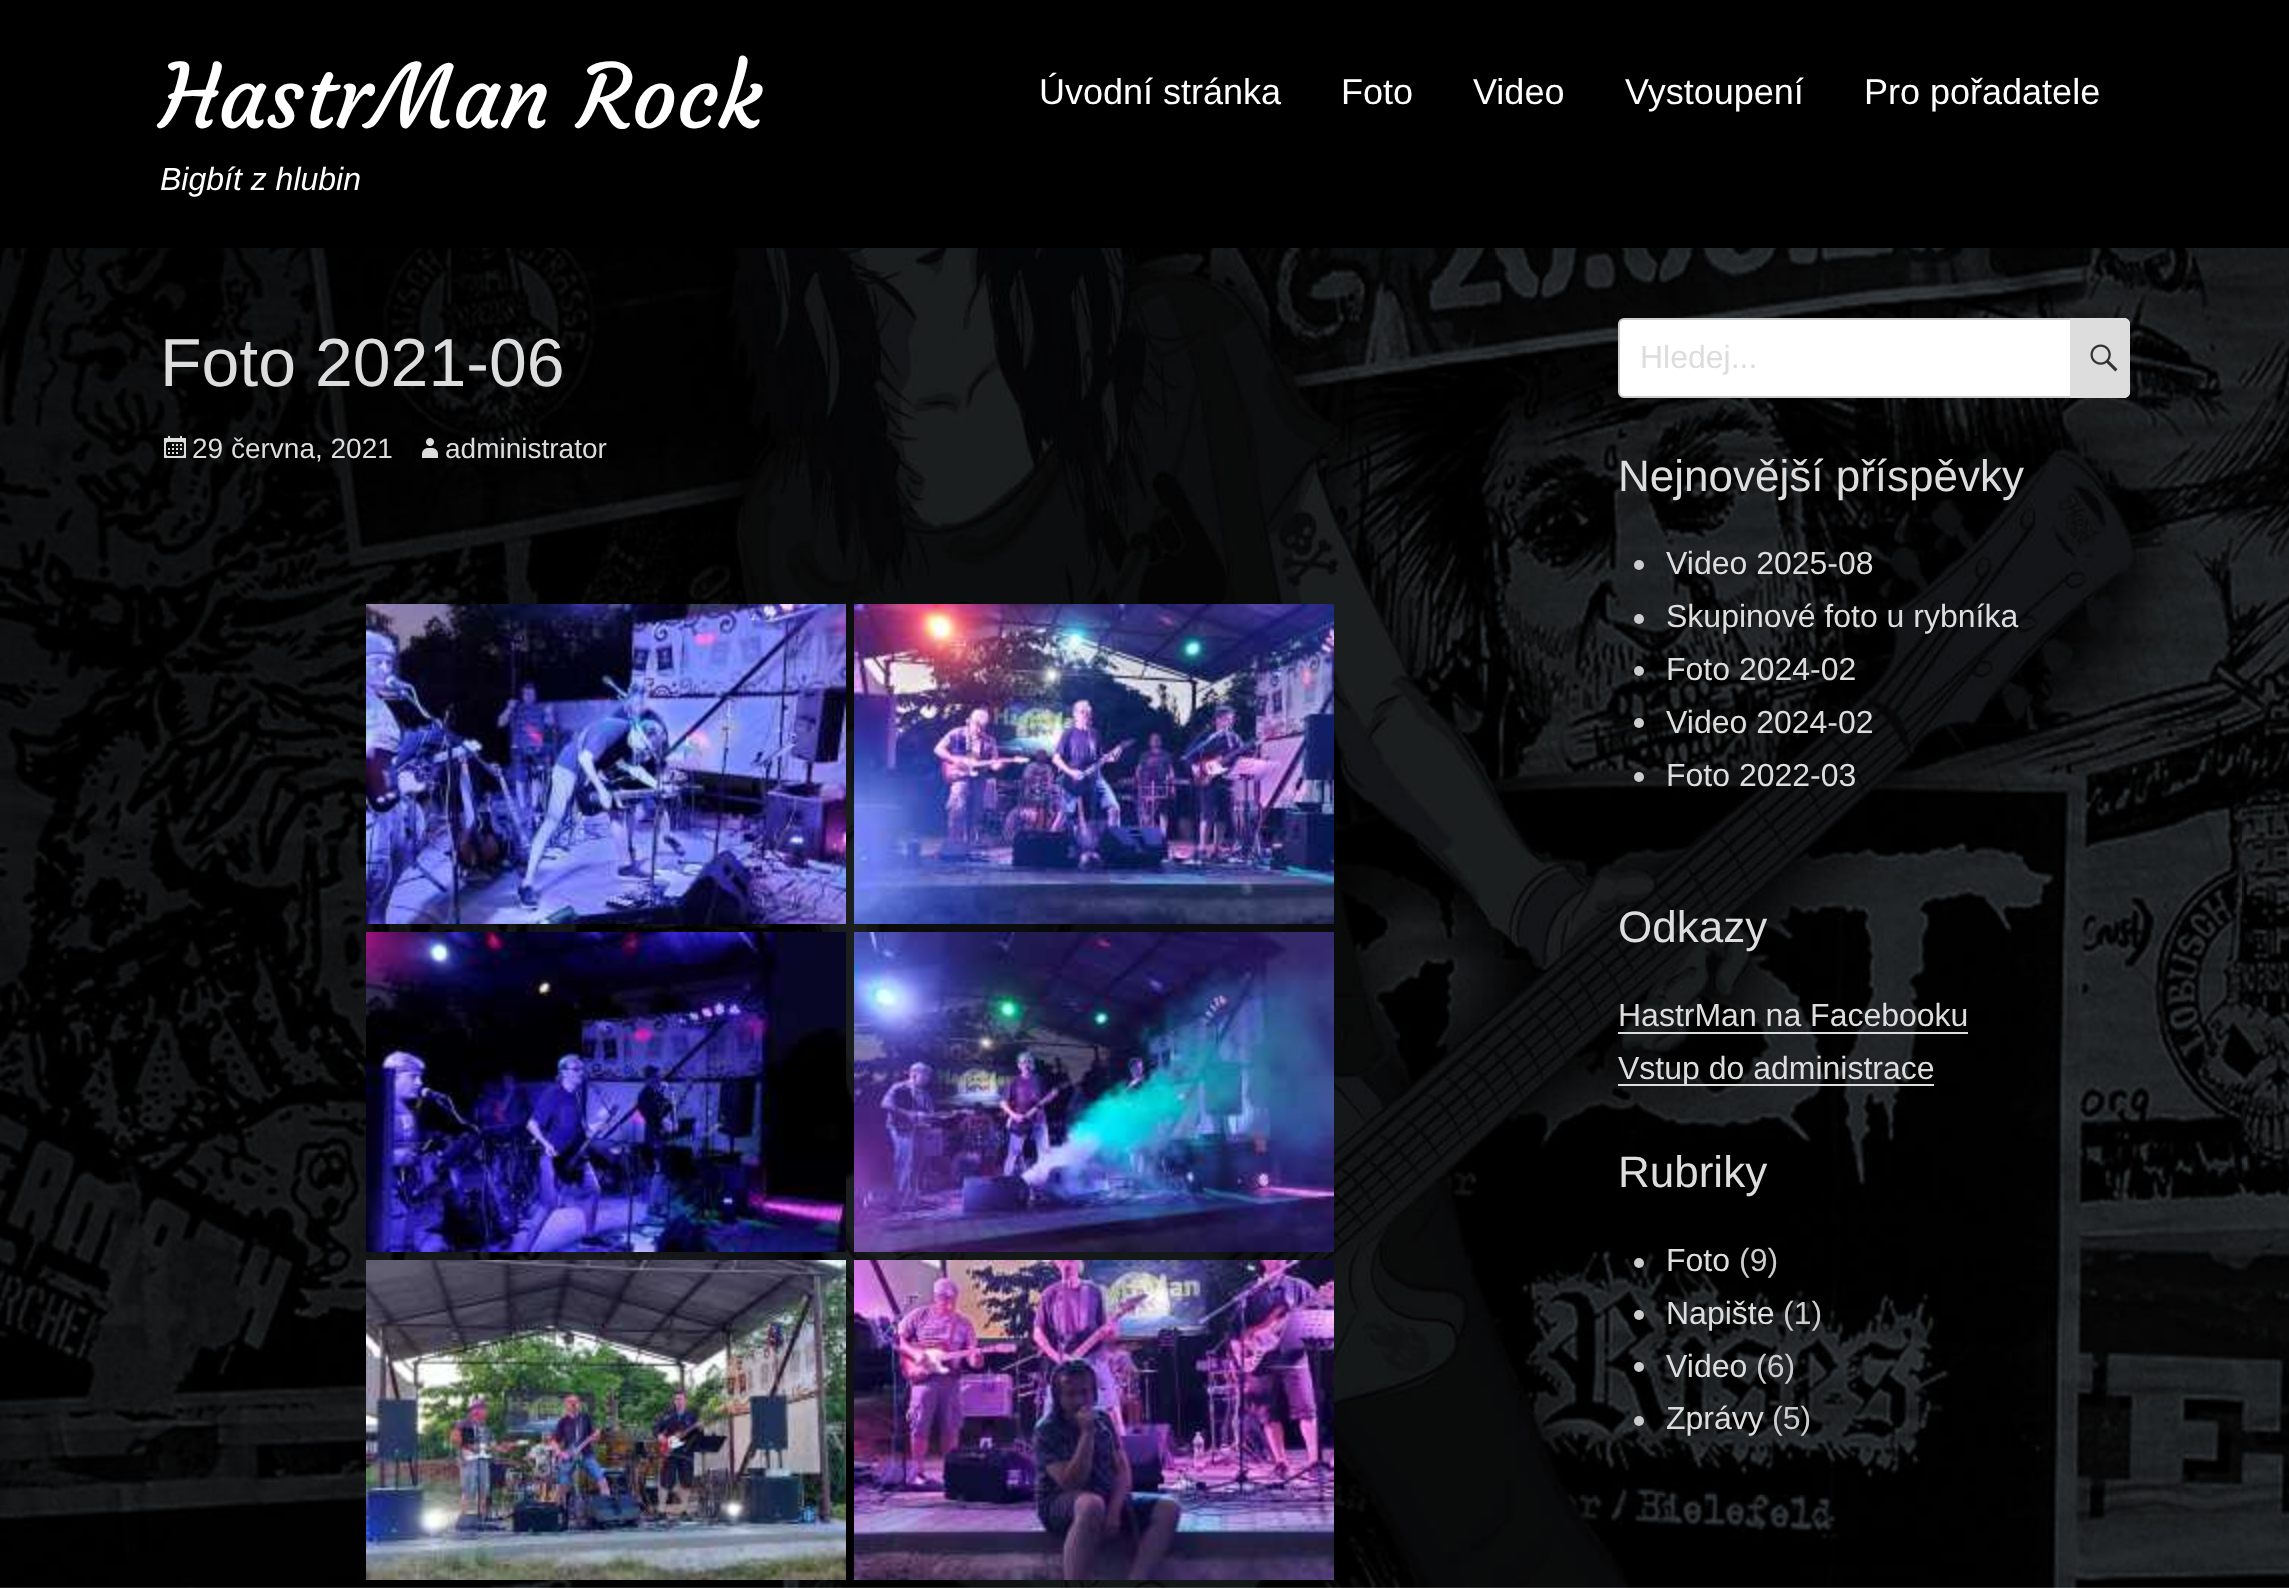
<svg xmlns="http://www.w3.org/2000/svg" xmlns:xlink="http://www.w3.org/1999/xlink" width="2289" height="1588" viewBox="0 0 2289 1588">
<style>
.cls-1{font:88px Courgette;fill:#ffffff}
.cls-2{font:italic 32px Liberation Sans;fill:#ffffff}
.cls-3{font:36px Liberation Sans;fill:#ffffff}
.cls-4{font:68px Liberation Sans;fill:#dddddd}
.cls-5{font:28px Liberation Sans;fill:#dddddd}
.cls-6{font:32px Liberation Sans;fill:#dddddd}
.cls-7{font:44px Liberation Sans;fill:#dddddd}
.cls-8{font:32px Liberation Sans;fill:#cccccc}
</style>
<rect width="100%" height="100%" fill="#ffffff"/>
<image xlink:href="image0.png" x="0" y="248" width="2289" height="1340"/>
<rect fill="#000000" x="0" y="0" width="2289" height="248"/>
<image xlink:href="image1.png" x="164" y="436" width="22" height="22"/>
<image xlink:href="image2.png" x="422" y="438" width="16" height="20"/>
<image xlink:href="image3.png" x="366" y="604" width="480" height="320"/>
<image xlink:href="image4.png" x="854" y="604" width="480" height="320"/>
<image xlink:href="image5.png" x="366" y="932" width="480" height="320"/>
<image xlink:href="image6.png" x="854" y="932" width="480" height="320"/>
<image xlink:href="image7.png" x="366" y="1260" width="480" height="320"/>
<image xlink:href="image8.png" x="854" y="1260" width="480" height="320"/>
<rect fill="#ffffff" stroke="#cccccc" stroke-width="2" x="1619" y="319" width="510" height="78" rx="5"/>
<path fill="#dddddd" d="M2070 318H2124C2127.5 318 2130 320.5 2130 324V392C2130 395.5 2127.5 398 2124 398H2070Z"/>
<image xlink:href="image9.png" x="2090" y="344" width="28" height="28"/>
<circle fill="#cccccc" cx="1639" cy="565" r="5"/>
<circle fill="#cccccc" cx="1639" cy="619" r="5"/>
<circle fill="#cccccc" cx="1639" cy="671" r="5"/>
<circle fill="#cccccc" cx="1639" cy="723" r="5"/>
<circle fill="#cccccc" cx="1639" cy="777" r="5"/>
<rect fill="#dddddd" x="1618" y="1032" width="350" height="2"/>
<rect fill="#dddddd" x="1618" y="1084" width="316" height="2"/>
<circle fill="#cccccc" cx="1639" cy="1263" r="5"/>
<circle fill="#cccccc" cx="1639" cy="1315" r="5"/>
<circle fill="#cccccc" cx="1639" cy="1367" r="5"/>
<circle fill="#cccccc" cx="1639" cy="1421" r="5"/>
<text class="cls-1" x="160" y="128">HastrMan Rock</text>
<text class="cls-2" x="160" y="190">Bigbít z hlubin</text>
<text class="cls-3" x="1039" y="104">Úvodní stránka</text>
<text class="cls-3" x="1341" y="104">Foto</text>
<text class="cls-3" x="1473" y="104">Video</text>
<text class="cls-3" x="1625" y="104">Vystoupení</text>
<text class="cls-3" x="1864" y="104">Pro pořadatele</text>
<text class="cls-4" x="160" y="386">Foto 2021-06</text>
<text class="cls-5" x="192" y="458">29 června, 2021</text>
<text class="cls-5" x="445" y="458">administrator</text>
<text class="cls-6" x="1640" y="368">Hledej...</text>
<text class="cls-7" x="1618" y="491">Nejnovější příspěvky</text>
<text class="cls-6"><tspan x="1666" y="574">Video 2025-08</tspan><tspan x="1666" y="627">Skupinové foto u rybníka</tspan><tspan x="1666" y="680">Foto 2024-02</tspan><tspan x="1666" y="733">Video 2024-02</tspan><tspan x="1666" y="786">Foto 2022-03</tspan></text>
<text class="cls-7" x="1618" y="942">Odkazy</text>
<text class="cls-6"><tspan x="1618" y="1026">HastrMan na Facebooku</tspan><tspan x="1618" y="1079">Vstup do administrace</tspan></text>
<text class="cls-7" x="1618" y="1187">Rubriky</text>
<text class="cls-6" x="1666" y="1271">Foto</text>
<text class="cls-8" x="1739" y="1271">(9)</text>
<text class="cls-6" x="1666" y="1324">Napište</text>
<text class="cls-8" x="1783" y="1324">(1)</text>
<text class="cls-6" x="1666" y="1377">Video</text>
<text class="cls-8" x="1756" y="1377">(6)</text>
<text class="cls-6" x="1666" y="1429">Zprávy</text>
<text class="cls-8" x="1772" y="1429">(5)</text>
</svg>
